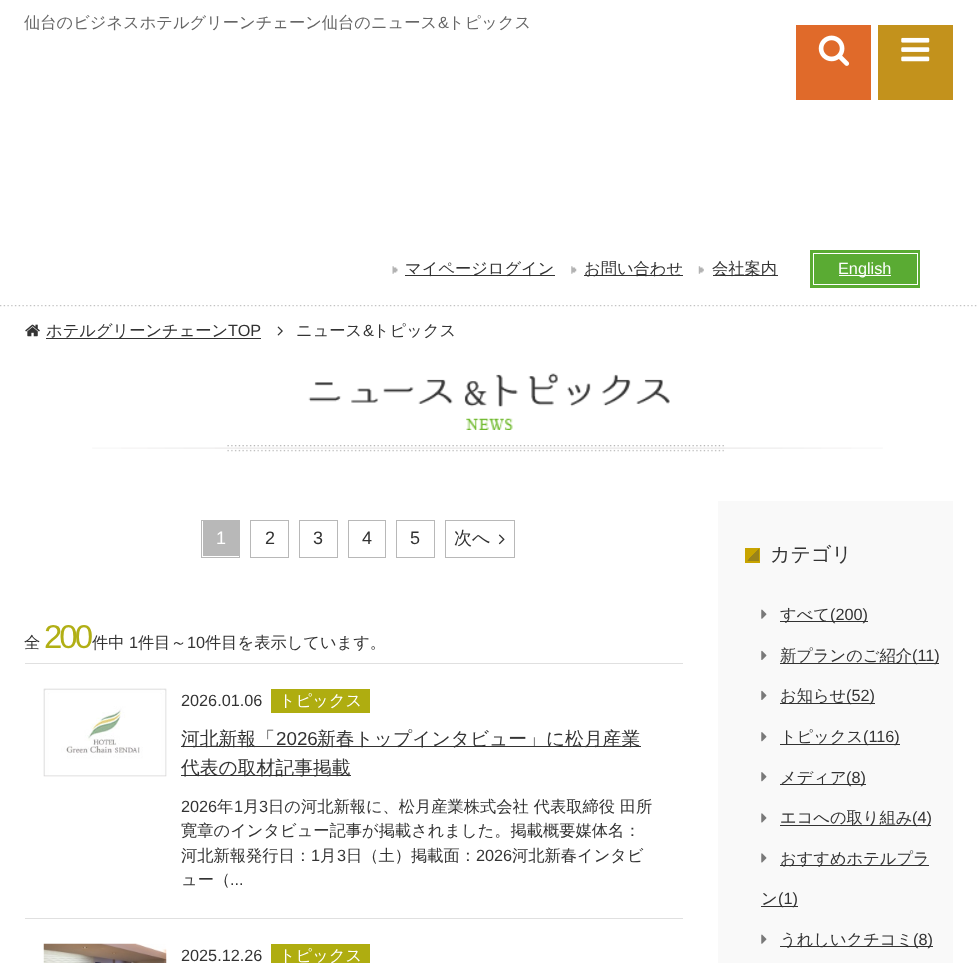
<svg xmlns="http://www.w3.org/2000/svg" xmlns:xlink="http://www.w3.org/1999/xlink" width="977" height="963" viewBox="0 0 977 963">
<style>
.cls-1{font:500 16.25px WenQuanYi Zen Hei;fill:#666666}
.cls-2{font:16.25px Liberation Sans;fill:#666666}
.cls-3{font:500 16.25px WenQuanYi Zen Hei;fill:#333333}
.cls-4{font:16.25px Liberation Sans;fill:#ffffff}
.cls-5{font:16.25px Liberation Sans;fill:#333333}
.cls-6{font:18px Liberation Sans;fill:#ffffff}
.cls-7{font:18px Liberation Sans;fill:#333333}
.cls-8{font:500 18px WenQuanYi Zen Hei;fill:#333333}
.cls-9{font:33px Liberation Sans;letter-spacing:-3px;fill:#b1af15}
.cls-10{font:500 16.25px WenQuanYi Zen Hei;fill:#ffffff}
.cls-11{font:500 18.8px WenQuanYi Zen Hei;fill:#333333}
.cls-12{font:18.8px Liberation Sans;fill:#333333}
.cls-13{font:500 20px WenQuanYi Zen Hei;fill:#333333}
</style>
<rect width="100%" height="100%" fill="#ffffff"/>
<image xlink:href="image0.png" x="0" y="305" width="977" height="2"/>
<image xlink:href="image1.png" x="392" y="266" width="6" height="8"/>
<rect fill="#333333" x="405" y="275" width="150" height="1"/>
<image xlink:href="image2.png" x="571" y="266" width="6" height="8"/>
<rect fill="#333333" x="584" y="275" width="99" height="1"/>
<image xlink:href="image3.png" x="698" y="266" width="6" height="8"/>
<rect fill="#333333" x="713" y="275" width="65" height="1"/>
<rect fill="#5aab33" x="810" y="250" width="110" height="38"/>
<rect fill="none" stroke="#ffffff" x="813.5" y="253.5" width="104" height="31"/>
<rect fill="#ffffff" x="839" y="275" width="52" height="1"/>
<image xlink:href="image4.png" x="25" y="324" width="15" height="13"/>
<rect fill="#333333" x="46" y="338" width="215" height="1"/>
<image xlink:href="image5.png" x="277" y="326" width="6" height="10"/>
<image xlink:href="image6.png" x="92" y="445" width="791" height="7"/>
<image xlink:href="image7.png" x="308" y="373" width="362" height="34"/>
<image xlink:href="image8.png" x="466" y="418" width="47" height="12"/>
<rect fill="none" stroke="#b8b8b8" x="201.5" y="520.5" width="38" height="37"/>
<rect fill="#b8b8b8" x="203" y="521" width="36" height="35"/>
<rect fill="none" stroke="#b8b8b8" x="250.5" y="520.5" width="38" height="37"/>
<rect fill="none" stroke="#b8b8b8" x="299.5" y="520.5" width="38" height="37"/>
<rect fill="none" stroke="#b8b8b8" x="348.5" y="520.5" width="37" height="37"/>
<rect fill="none" stroke="#b8b8b8" x="396.5" y="520.5" width="38" height="37"/>
<rect fill="none" stroke="#b8b8b8" x="445.5" y="520.5" width="69" height="37"/>
<image xlink:href="image9.png" x="498" y="534" width="7" height="11"/>
<rect fill="#e0e0e0" x="25" y="663" width="658" height="1"/>
<rect fill="#e0e0e0" x="25" y="918" width="658" height="1"/>
<image xlink:href="image10.png" x="43" y="688" width="124" height="89"/>
<rect fill="#afad10" x="271" y="689" width="99" height="24"/>
<rect fill="#333333" x="181" y="746" width="460" height="1"/>
<rect fill="#333333" x="181" y="775" width="170" height="1"/>
<image xlink:href="image11.png" x="43" y="943" width="124" height="20"/>
<rect fill="#afad10" x="271" y="944" width="99" height="19"/>
<rect fill="#f9f9f9" x="718" y="501" width="235" height="462"/>
<image xlink:href="image12.png" x="746" y="549" width="13" height="13"/>
<rect fill="none" stroke="#c8a400" x="745.5" y="548.5" width="14" height="14"/>
<image xlink:href="image13.png" x="761" y="609" width="6" height="10"/>
<rect fill="#333333" x="780" y="621" width="88" height="1"/>
<image xlink:href="image14.png" x="761" y="650" width="6" height="10"/>
<rect fill="#333333" x="780" y="663" width="159" height="1"/>
<image xlink:href="image14.png" x="761" y="690" width="6" height="10"/>
<rect fill="#333333" x="780" y="703" width="95" height="1"/>
<image xlink:href="image15.png" x="761" y="732" width="6" height="10"/>
<rect fill="#333333" x="780" y="744" width="120" height="1"/>
<image xlink:href="image15.png" x="761" y="772" width="6" height="10"/>
<rect fill="#333333" x="780" y="784" width="86" height="1"/>
<image xlink:href="image16.png" x="761" y="813" width="6" height="10"/>
<rect fill="#333333" x="780" y="825" width="151" height="1"/>
<image xlink:href="image16.png" x="761" y="853" width="6" height="10"/>
<rect fill="#333333" x="780" y="865" width="149" height="1"/>
<rect fill="#333333" x="761" y="906" width="37" height="1"/>
<image xlink:href="image13.png" x="761" y="934" width="6" height="10"/>
<rect fill="#333333" x="780" y="946" width="153" height="1"/>
<rect fill="#e06a2a" x="796" y="25" width="75" height="75"/>
<image xlink:href="image17.png" x="818" y="35" width="32" height="31"/>
<rect fill="#c3921c" x="878" y="25" width="75" height="75"/>
<image xlink:href="image18.png" x="901" y="37" width="29" height="25"/>
<text class="cls-1" x="24" y="28">仙台のビジネスホテルグリーンチェーン仙台のニュース</text>
<text class="cls-2" x="438" y="28">&amp;</text>
<text class="cls-1" x="448" y="28">トピックス</text>
<text class="cls-3" x="405" y="274">マイページログイン</text>
<text class="cls-3" x="584" y="274">お問い合わせ</text>
<text class="cls-3" x="712" y="274">会社案内</text>
<text class="cls-4" x="838" y="274">English</text>
<text class="cls-3" x="46" y="336">ホテルグリーンチェーン</text>
<text class="cls-5" x="228" y="336">TOP</text>
<text class="cls-3" x="296" y="336">ニュース</text>
<text class="cls-5" x="363" y="336">&amp;</text>
<text class="cls-3" x="373" y="336">トピックス</text>
<text class="cls-6" x="216" y="544">1</text>
<text class="cls-7" x="265" y="544">2</text>
<text class="cls-7" x="313" y="544">3</text>
<text class="cls-7" x="362" y="544">4</text>
<text class="cls-7" x="410" y="544">5</text>
<text class="cls-8" x="454" y="544">次へ</text>
<text class="cls-3" x="24" y="648">全</text>
<text class="cls-9" x="44" y="648">200</text>
<text class="cls-3" x="92" y="648">件中</text>
<text class="cls-5" x="129" y="648">1</text>
<text class="cls-3" x="138" y="648">件目～</text>
<text class="cls-5" x="187" y="648">10</text>
<text class="cls-3" x="205" y="648">件目を表示しています。</text>
<text class="cls-5" x="181" y="706">2026.01.06</text>
<text class="cls-10" x="279" y="706">トピックス</text>
<text class="cls-11" x="181" y="745">河北新報「</text>
<text class="cls-12" x="276" y="745">2026</text>
<text class="cls-11" x="317" y="745">新春トップインタビュー」に松月産業</text>
<text class="cls-11" x="181" y="774">代表の取材記事掲載</text>
<text class="cls-5" x="181" y="812">2026</text>
<text class="cls-3" x="217" y="812">年</text>
<text class="cls-5" x="234" y="812">1</text>
<text class="cls-3" x="243" y="812">月</text>
<text class="cls-5" x="259" y="812">3</text>
<text class="cls-3" x="268" y="812">日の河北新報に、松月産業株式会社 代表取締役 田所</text>
<text class="cls-3"><tspan x="181" y="836">寛章のインタビュー記事が掲載されました。掲載概要媒体名：</tspan><tspan x="181" y="861">河北新報発行日：</tspan></text>
<text class="cls-5" x="311" y="861">1</text>
<text class="cls-3" x="320" y="861">月</text>
<text class="cls-5" x="337" y="861">3</text>
<text class="cls-3" x="346" y="861">日（土）掲載面：</text>
<text class="cls-5" x="476" y="861">2026</text>
<text class="cls-3" x="512" y="861">河北新春インタビ</text>
<text class="cls-3" x="181" y="885">ュー（</text>
<text class="cls-5" x="230" y="885">...</text>
<text class="cls-5" x="181" y="961">2025.12.26</text>
<text class="cls-10" x="279" y="961">トピックス</text>
<text class="cls-13" x="770" y="561">カテゴリ</text>
<text class="cls-3" x="780" y="620">すべて</text>
<text class="cls-5" x="830" y="620">(200)</text>
<text class="cls-3" x="780" y="661">新プランのご紹介</text>
<text class="cls-5" x="912" y="661">(11)</text>
<text class="cls-3" x="780" y="701">お知らせ</text>
<text class="cls-5" x="846" y="701">(52)</text>
<text class="cls-3" x="780" y="742">トピックス</text>
<text class="cls-5" x="863" y="742">(116)</text>
<text class="cls-3" x="780" y="783">メディア</text>
<text class="cls-5" x="846" y="783">(8)</text>
<text class="cls-3" x="780" y="823">エコへの取り組み</text>
<text class="cls-5" x="912" y="823">(4)</text>
<text class="cls-3" x="780" y="864">おすすめホテルプラ</text>
<text class="cls-3" x="761" y="904">ン</text>
<text class="cls-5" x="778" y="904">(1)</text>
<text class="cls-3" x="780" y="945">うれしいクチコミ</text>
<text class="cls-5" x="913" y="945">(8)</text>
</svg>
